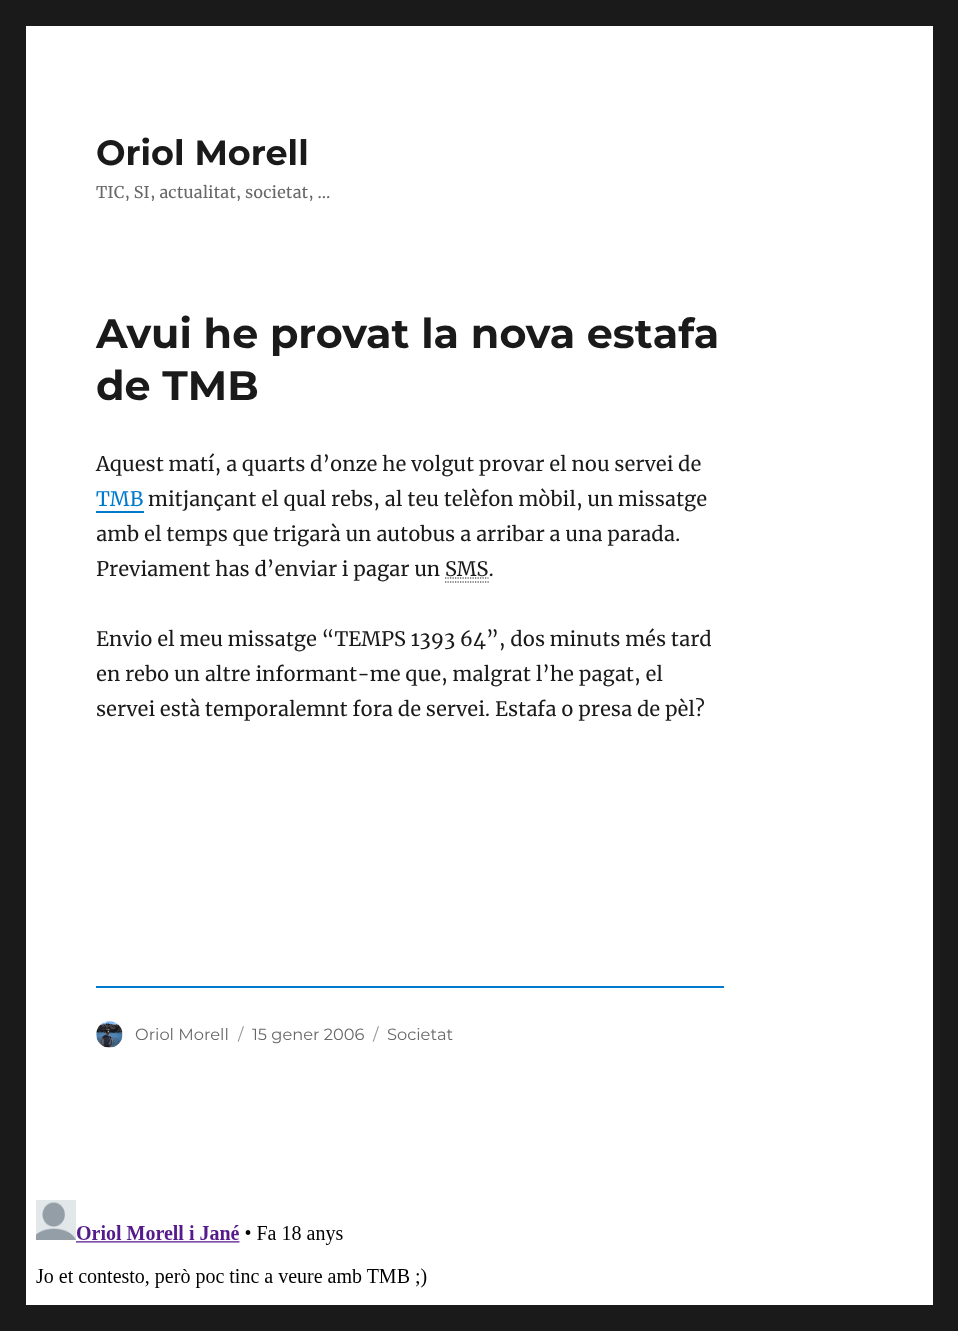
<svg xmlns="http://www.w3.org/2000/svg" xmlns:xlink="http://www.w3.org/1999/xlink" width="958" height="1331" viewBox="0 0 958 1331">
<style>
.cls-1{font:100 35px Montserrat;fill:#1a1a1a}
.cls-2{font:16.25px Merriweather;fill:#686868}
.cls-3{font:100 41.25px Montserrat;fill:#1a1a1a}
.cls-4{font:20px Merriweather;fill:#1a1a1a}
.cls-5{font:20px Merriweather;fill:#007acc}
.cls-6{font:100 16.25px 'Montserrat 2';fill:#686868}
.cls-7{font:100 16.25px 'Montserrat 2';fill:#959595}
</style>
<defs>
<clipPath id="clip1"><rect x="96" y="131" width="234" height="70"/></clipPath>
</defs>
<rect width="100%" height="100%" fill="#1a1a1a"/>
<rect fill="#ffffff" x="26" y="26" width="907" height="1279"/>
<path fill="#007acc" d="M96 488V513H144V488V511H96Z"/>
<path fill="none" stroke="#1a1a1a" stroke-width="1.2" stroke-dasharray="1.25 1.25" d="M445 582H489M445 578H488.5"/>
<path fill="#007acc" d="M96 763V988H724V763V986H96Z"/>
<image xlink:href="image0.png" x="96" y="1021" width="27" height="27"/>
<image xlink:href="image1.png" x="36" y="1200" width="391" height="88"/>
<text class="cls-1" x="96" y="165">Oriol Morell</text>
<g clip-path="url(#clip1)">
<text class="cls-2" x="96" y="198">TIC, SI, actualitat, societat, …</text>
</g>
<text class="cls-3"><tspan x="96" y="348">Avui he provat la nova estafa</tspan><tspan x="96" y="400">de TMB</tspan></text>
<text class="cls-4" x="96" y="471">Aquest matí, a quarts d’onze he volgut provar el nou servei de</text>
<text class="cls-5" x="96" y="506">TMB</text>
<text class="cls-4" x="148" y="506">mitjançant el qual rebs, al teu telèfon mòbil, un missatge</text>
<text class="cls-4"><tspan x="96" y="541">amb el temps que trigarà un autobus a arribar a una parada.</tspan><tspan x="96" y="576">Previament has d’enviar i pagar un SMS.</tspan></text>
<text class="cls-4"><tspan x="96" y="646">Envio el meu missatge “TEMPS 1393 64”, dos minuts més tard</tspan><tspan x="96" y="681">en rebo un altre informant-me que, malgrat l’he pagat, el</tspan><tspan x="96" y="716">servei està temporalemnt fora de servei. Estafa o presa de pèl?</tspan></text>
<text class="cls-6" x="135" y="1040">Oriol Morell</text>
<text class="cls-7" x="238" y="1040">/</text>
<text class="cls-6" x="252" y="1040">15 gener 2006</text>
<text class="cls-7" x="373" y="1040">/</text>
<text class="cls-6" x="387" y="1040">Societat</text>
</svg>
